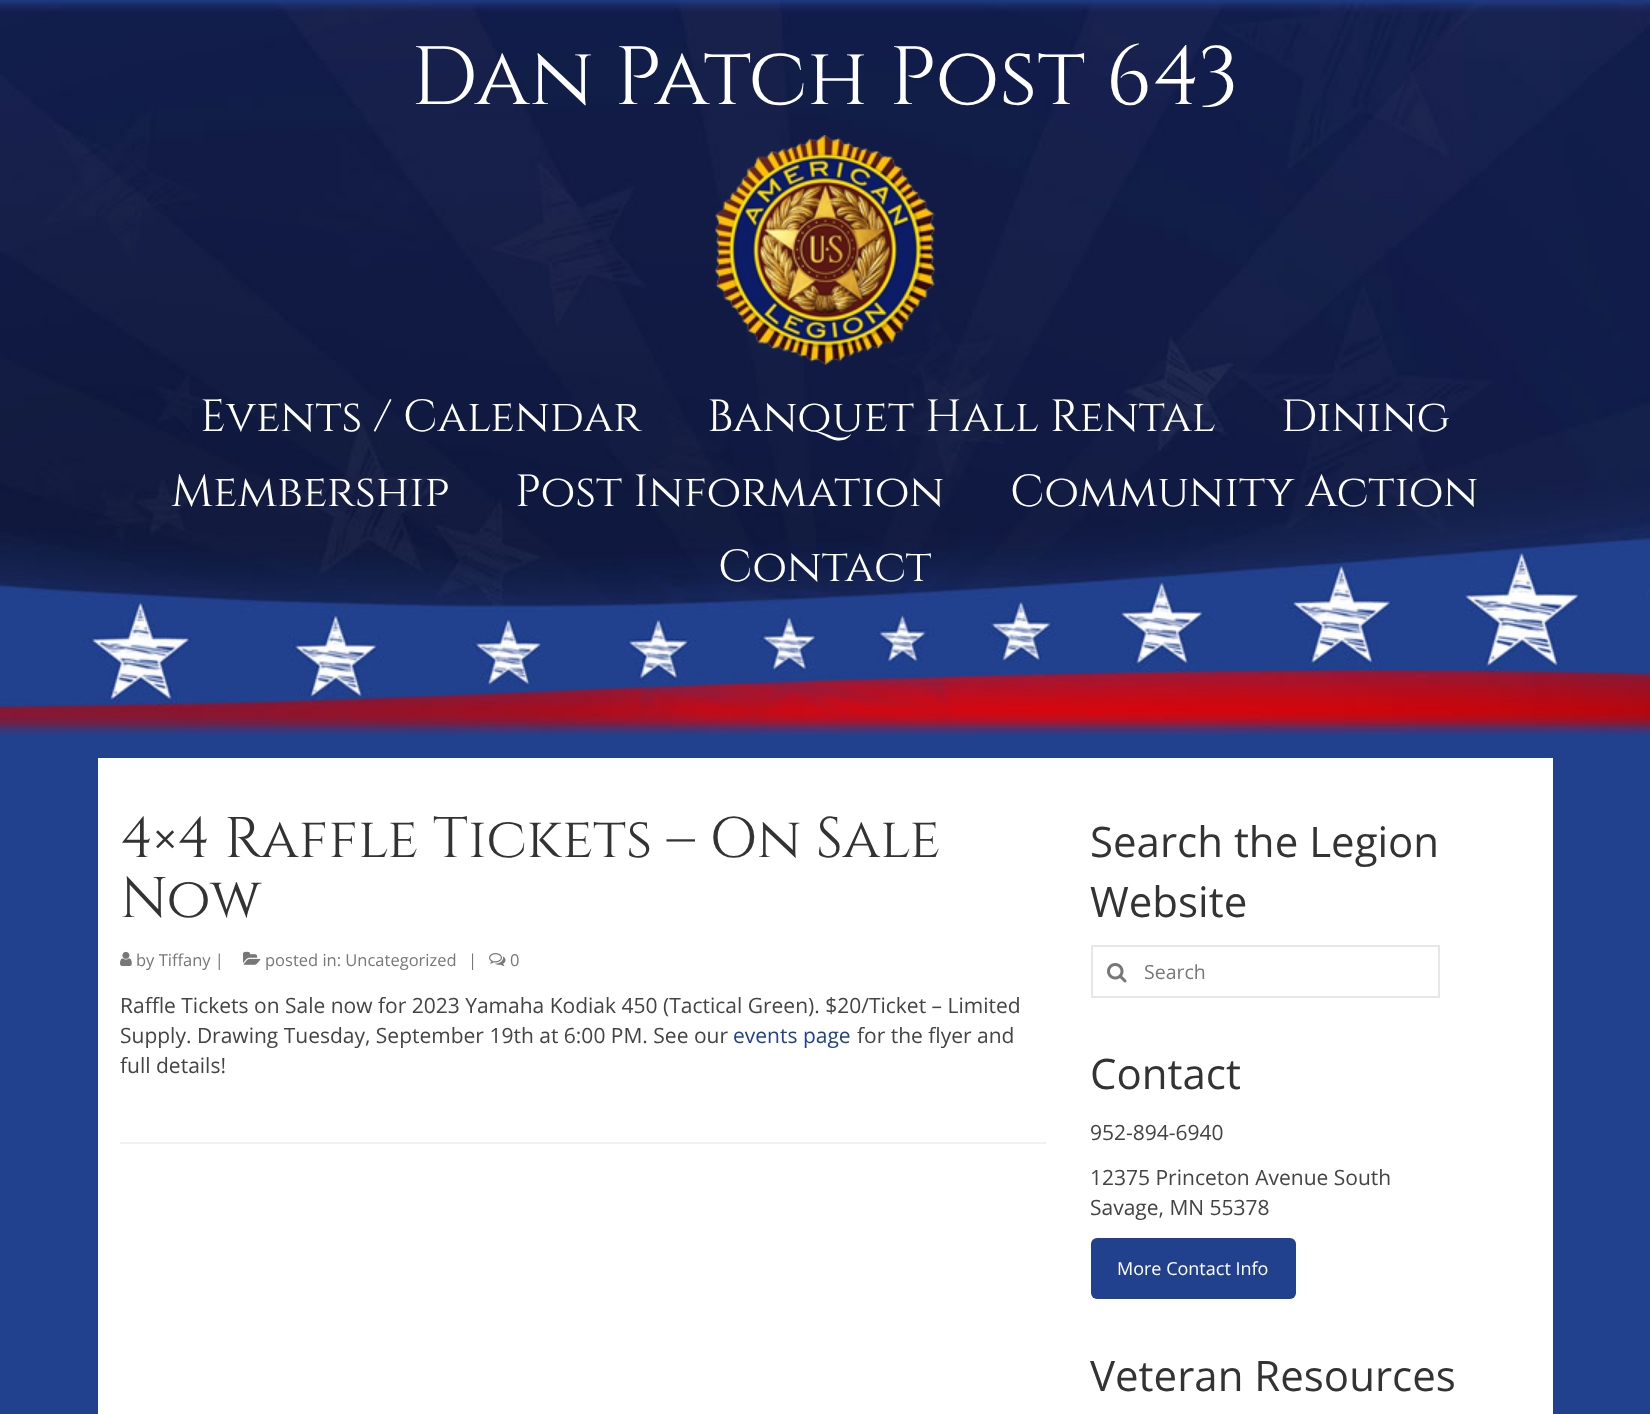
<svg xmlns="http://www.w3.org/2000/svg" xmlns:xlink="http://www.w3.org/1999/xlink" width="1650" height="1414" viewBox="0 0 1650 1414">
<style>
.cls-1{font:82.5px Cinzel;fill:#ffffff}
.cls-2{font:45px Cinzel;fill:#ffffff}
.cls-3{font:57px Cinzel;fill:#333333}
.cls-4{font:16.5px Open Sans;fill:#777777}
.cls-5{font:21px Open Sans;fill:#444444}
.cls-6{font:21px Open Sans;fill:#21418e}
.cls-7{font:42px Open Sans;fill:#333333}
.cls-8{font:19.5px Open Sans;fill:#777777}
.cls-9{font:18px Open Sans;fill:#ffffff}
</style>
<rect width="100%" height="100%" fill="#ffffff"/>
<image xlink:href="image0.png" x="0" y="0" width="1650" height="735"/>
<image xlink:href="image1.png" x="715" y="135" width="221" height="230"/>
<rect fill="#21418e" x="0" y="735" width="1650" height="679"/>
<rect fill="#ffffff" x="98" y="758" width="1455" height="656"/>
<image xlink:href="image2.png" x="120" y="951" width="12" height="15"/>
<image xlink:href="image3.png" x="243" y="951" width="18" height="14"/>
<image xlink:href="image4.png" x="489" y="953" width="17" height="13"/>
<rect fill="#f2f2f2" x="120" y="1142" width="926" height="2"/>
<rect fill="none" stroke="#e7e7e7" stroke-width="2" x="1092" y="946" width="347" height="51"/>
<image xlink:href="image5.png" x="1107" y="963" width="20" height="20"/>
<rect fill="#21418e" x="1091" y="1238" width="205" height="61" rx="6"/>
<text class="cls-1" x="411" y="104">Dan Patch Post 643</text>
<text class="cls-2" x="200" y="431">Events / Calendar</text>
<text class="cls-2" x="707" y="431">Banquet Hall Rental</text>
<text class="cls-2" x="1281" y="431">Dining</text>
<text class="cls-2" x="171" y="506">Membership</text>
<text class="cls-2" x="515" y="506">Post Information</text>
<text class="cls-2" x="1010" y="506">Community Action</text>
<text class="cls-2" x="718" y="581">Contact</text>
<text class="cls-3"><tspan x="120" y="857">4×4 Raffle Tickets – On Sale</tspan><tspan x="120" y="917">Now</tspan></text>
<text class="cls-4" x="136" y="966">by Tiffany |</text>
<text class="cls-4" x="265" y="966">posted in: Uncategorized</text>
<text class="cls-4" x="468" y="966">|</text>
<text class="cls-4" x="510" y="966">0</text>
<text class="cls-5"><tspan x="120" y="1013">Raffle Tickets on Sale now for 2023 Yamaha Kodiak 450 (Tactical Green). $20/Ticket – Limited</tspan><tspan x="120" y="1043">Supply. Drawing Tuesday, September 19th at 6:00 PM. See our</tspan></text>
<text class="cls-6" x="733" y="1043">events page</text>
<text class="cls-5" x="857" y="1043">for the flyer and</text>
<text class="cls-5" x="120" y="1073">full details!</text>
<text class="cls-7"><tspan x="1090" y="857">Search the Legion</tspan><tspan x="1090" y="917">Website</tspan></text>
<text class="cls-8" x="1144" y="979">Search</text>
<text class="cls-7" x="1090" y="1089">Contact</text>
<text class="cls-5" x="1090" y="1140">952-894-6940</text>
<text class="cls-5"><tspan x="1090" y="1185">12375 Princeton Avenue South</tspan><tspan x="1090" y="1215">Savage, MN 55378</tspan></text>
<text class="cls-9" x="1117" y="1275">More Contact Info</text>
<text class="cls-7" x="1090" y="1391">Veteran Resources</text>
</svg>
